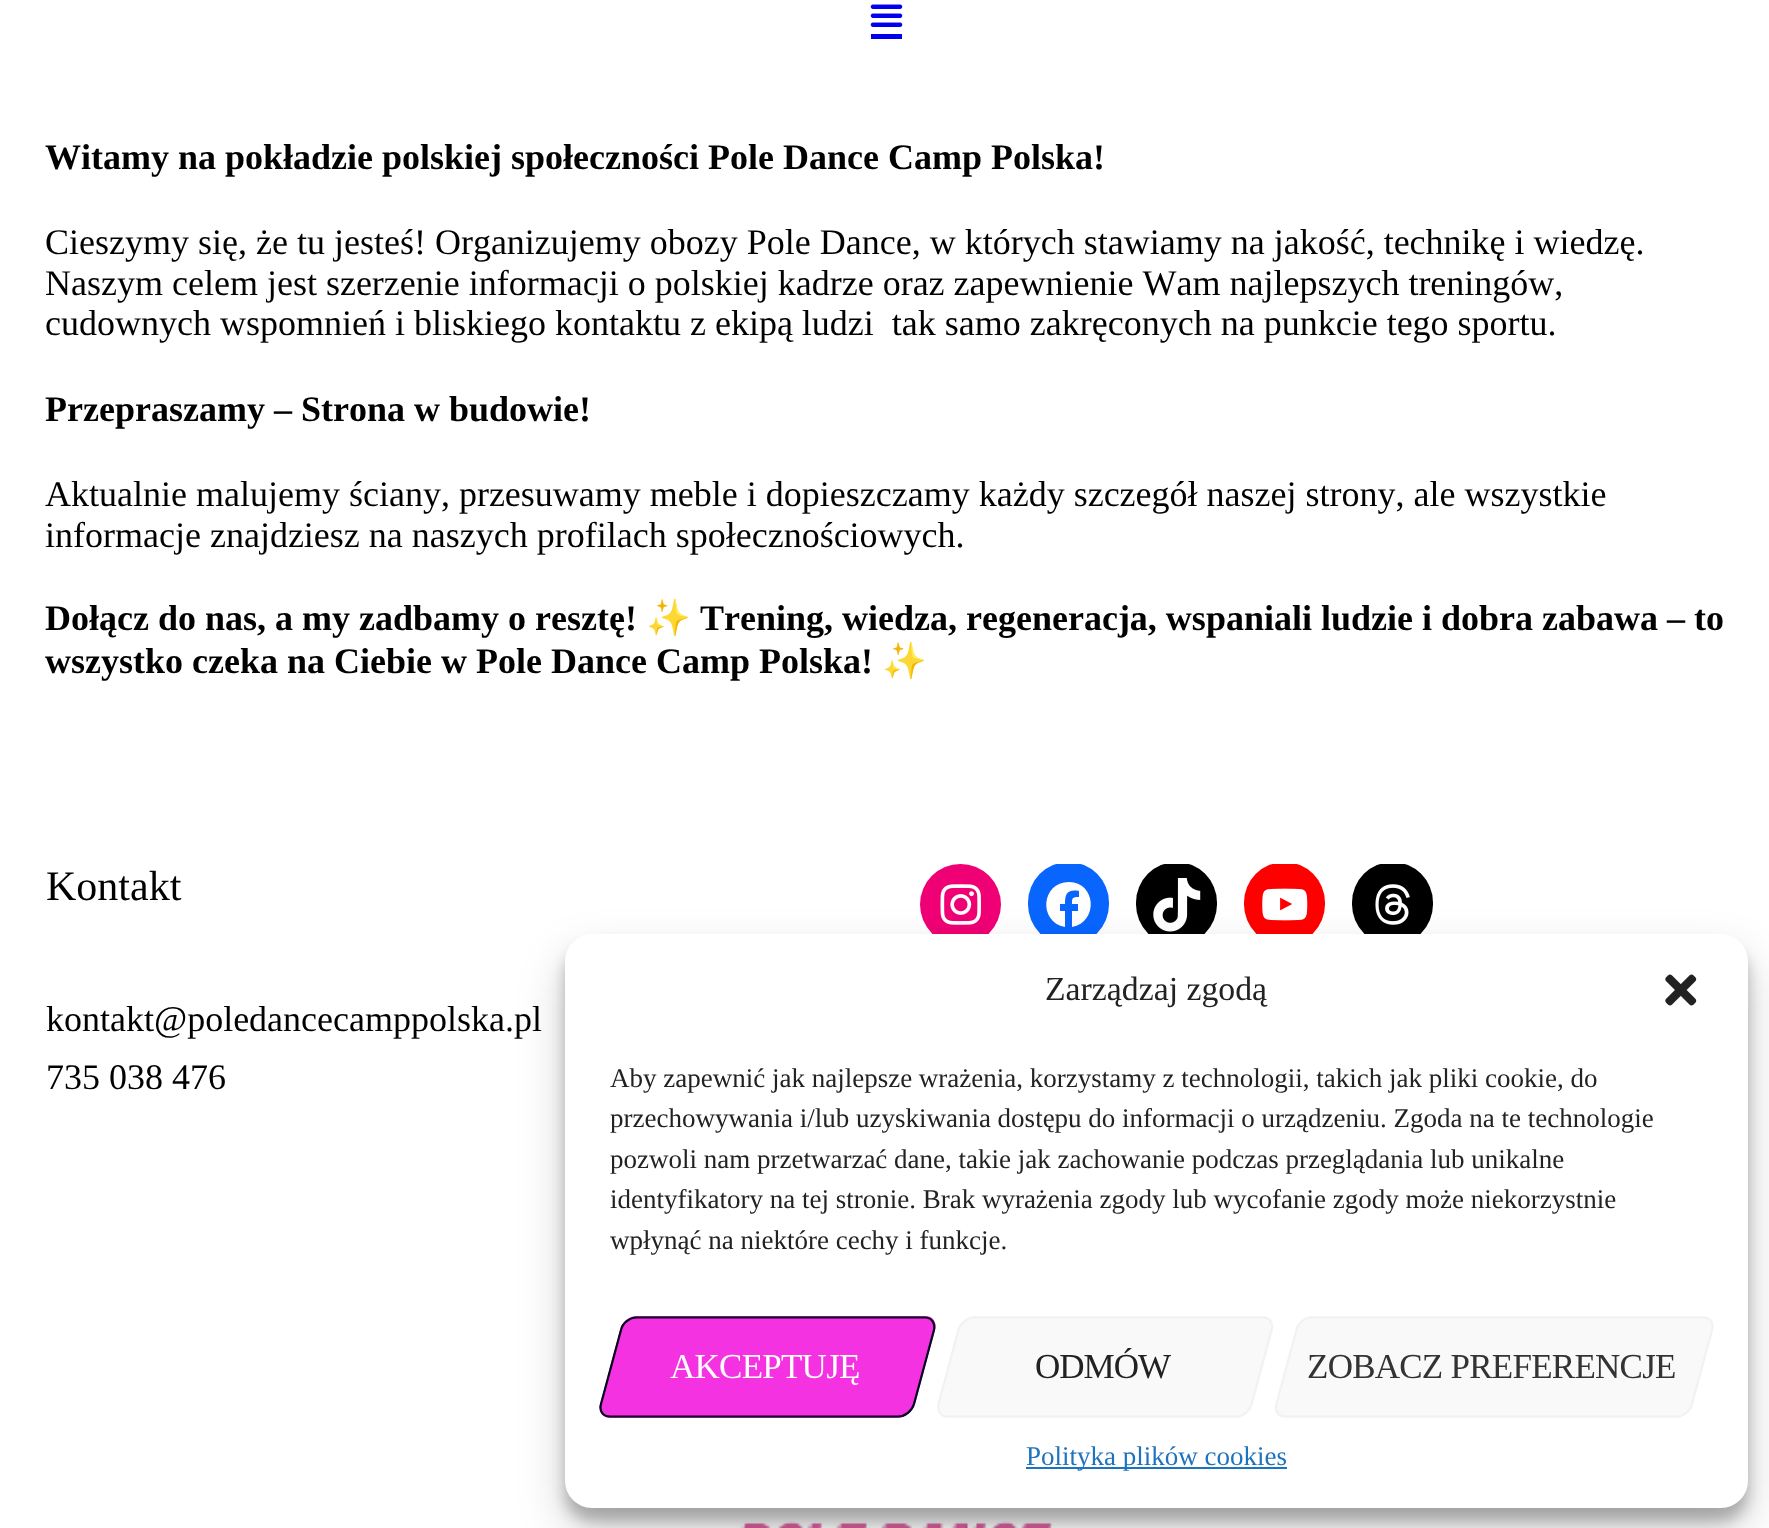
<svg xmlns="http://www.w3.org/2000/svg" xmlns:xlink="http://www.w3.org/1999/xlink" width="1769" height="1528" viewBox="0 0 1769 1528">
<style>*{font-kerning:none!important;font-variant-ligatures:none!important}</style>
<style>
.cls-1{font:bold 36px Liberation Serif;fill:#000000}
.cls-2{font:36px Liberation Serif;fill:#000000}
.cls-3{font:36px Noto Color Emoji;fill:#000000}
.cls-4{font:42px Liberation Serif;fill:#000000}
.cls-5{font:33.75px Liberation Serif;fill:#222222}
.cls-6{font:27px Liberation Serif;fill:#222222}
.cls-7{font:35px Liberation Serif;letter-spacing:-0.75px;fill:#ffffff}
.cls-8{font:35px Liberation Serif;letter-spacing:-1px;fill:#222222}
.cls-9{font:35px Liberation Serif;letter-spacing:-0.75px;fill:#333333}
.cls-10{font:27px Liberation Serif;fill:#1e73be}
</style>
<rect width="100%" height="100%" fill="#ffffff"/>
<rect fill="#0000ee" x="871" y="34" width="31" height="5"/>
<image xlink:href="image0.png" x="870" y="4" width="33" height="23"/>
<circle fill="#f00075" cx="960.5" cy="904.5" r="40.5"/>
<image xlink:href="image1.png" x="940" y="884" width="41" height="41"/>
<rect fill="#0866ff" x="1028" y="862" width="81" height="83" rx="40.5"/>
<rect fill="#ffffff" x="1049" y="862" width="40" height="2"/>
<path fill="#ffffff" d="M1069 882C1041 882 1038 922 1065 927V911H1060V904H1065C1065 894 1067 889 1079 891V897C1072 897 1072 898 1072 904H1078V911H1072V927C1099 922 1096 882 1069 882Z"/>
<rect fill="#000000" x="1136" y="862" width="81" height="83" rx="40.5"/>
<rect fill="#ffffff" x="1157" y="862" width="40" height="2"/>
<image xlink:href="image2.png" x="1153" y="878" width="48" height="54"/>
<rect fill="#ff0000" x="1244" y="862" width="81" height="83" rx="40.5"/>
<rect fill="#ffffff" x="1265" y="862" width="40" height="2"/>
<image xlink:href="image3.png" x="1262" y="888" width="46" height="33"/>
<rect fill="#000000" x="1352" y="862" width="81" height="83" rx="40.5"/>
<rect fill="#ffffff" x="1373" y="862" width="40" height="2"/>
<image xlink:href="image4.png" x="1375" y="884" width="35" height="41"/>
<image xlink:href="image5.png" x="740" y="1521" width="312" height="7"/>
<rect fill="#000000" fill-opacity="0.23" filter="blur(7px)" x="565" y="947" width="1183" height="574" rx="27"/>
<rect fill="#000000" fill-opacity="0.19" filter="blur(22.5px)" x="565" y="956" width="1183" height="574" rx="27"/>
<rect fill="#ffffff" x="565" y="934" width="1183" height="574" rx="27"/>
<image xlink:href="image6.png" x="1665" y="974" width="32" height="32"/>
<path fill="#f532e1" d="M637 1316H925C933 1316 937 1322 935 1330L915 1404C913 1411 905 1418 898 1418H610C602 1418 598 1411 600 1404L620 1330C622 1322 629 1316 637 1316Z"/>
<path fill="none" stroke="#03051d" stroke-width="2.2" d="M636.5 1317.5H925C931.5 1317.5 935.5 1323 934 1330L914 1404C912 1411 905 1416.5 898 1416.5H610C603 1416.5 599 1411 601 1404L621 1330C622.5 1323 629.5 1317.5 636.5 1317.5Z"/>
<path fill="#f9f9f9" d="M975 1316H1263C1270 1316 1275 1322 1273 1330L1253 1404C1251 1411 1243 1418 1236 1418H947C940 1418 936 1411 938 1404L957 1330C959 1322 967 1316 975 1316Z"/>
<path fill="none" stroke="#f2f2f2" stroke-width="2.2" d="M974.5 1317.5H1262.5C1269.5 1317.5 1273.5 1323 1271.5 1330L1251.5 1404C1250 1411 1243 1416.5 1236 1416.5H947.5C941 1416.5 937 1411 938.5 1404L958.5 1330C960.5 1323 967.5 1317.5 974.5 1317.5Z"/>
<path fill="#f9f9f9" d="M1312 1316H1703C1711 1316 1715 1322 1713 1330L1693 1404C1691 1411 1684 1418 1676 1418H1285C1278 1418 1273 1411 1275 1404L1295 1330C1297 1322 1305 1316 1312 1316Z"/>
<path fill="none" stroke="#f2f2f2" stroke-width="2.2" d="M1312 1317.5H1703C1710 1317.5 1714 1323 1712 1330L1692 1404C1690.5 1411 1683.5 1416.5 1676.5 1416.5H1285.5C1278.5 1416.5 1274.5 1411 1276.5 1404L1296.5 1330C1298 1323 1305 1317.5 1312 1317.5Z"/>
<rect fill="#1e73be" x="1026" y="1467" width="261" height="2"/>
<text class="cls-1" x="45" y="169">Witamy na pokładzie polskiej społeczności Pole Dance Camp Polska!</text>
<text class="cls-2" xml:space="preserve"><tspan x="45" y="254">Cieszymy się, że tu jesteś! Organizujemy obozy Pole Dance, w których stawiamy na jakość, technikę i wiedzę.</tspan><tspan x="45" y="295">Naszym celem jest szerzenie informacji o polskiej kadrze oraz zapewnienie Wam najlepszych treningów,</tspan><tspan x="45" y="335">cudownych wspomnień i bliskiego kontaktu z ekipą ludzi  tak samo zakręconych na punkcie tego sportu.</tspan></text>
<text class="cls-1" x="45" y="421">Przepraszamy – Strona w budowie!</text>
<text class="cls-2"><tspan x="45" y="506">Aktualnie malujemy ściany, przesuwamy meble i dopieszczamy każdy szczegół naszej strony, ale wszystkie</tspan><tspan x="45" y="547">informacje znajdziesz na naszych profilach społecznościowych.</tspan></text>
<text class="cls-1" x="45" y="630">Dołącz do nas, a my zadbamy o resztę!</text>
<text class="cls-3" x="646" y="630">✨</text>
<text class="cls-1" x="700" y="630">Trening, wiedza, regeneracja, wspaniali ludzie i dobra zabawa – to</text>
<text class="cls-1" x="45" y="673">wszystko czeka na Ciebie w Pole Dance Camp Polska!</text>
<text class="cls-3" x="882" y="673">✨</text>
<text class="cls-4" x="46" y="900">Kontakt</text>
<text class="cls-2"><tspan x="46" y="1031">kontakt@poledancecamppolska.pl</tspan><tspan x="46" y="1089">735 038 476</tspan></text>
<text class="cls-5" x="1045" y="1000">Zarządzaj zgodą</text>
<text class="cls-6"><tspan x="610" y="1087">Aby zapewnić jak najlepsze wrażenia, korzystamy z technologii, takich jak pliki cookie, do</tspan><tspan x="610" y="1127">przechowywania i/lub uzyskiwania dostępu do informacji o urządzeniu. Zgoda na te technologie</tspan><tspan x="610" y="1168">pozwoli nam przetwarzać dane, takie jak zachowanie podczas przeglądania lub unikalne</tspan><tspan x="610" y="1208">identyfikatory na tej stronie. Brak wyrażenia zgody lub wycofanie zgody może niekorzystnie</tspan><tspan x="610" y="1249">wpłynąć na niektóre cechy i funkcje.</tspan></text>
<text class="cls-7" x="670" y="1378">AKCEPTUJĘ</text>
<text class="cls-8" x="1035" y="1378">ODMÓW</text>
<text class="cls-9" x="1307" y="1378">ZOBACZ PREFERENCJE</text>
<text class="cls-10" x="1026" y="1465">Polityka plików cookies</text>
</svg>
